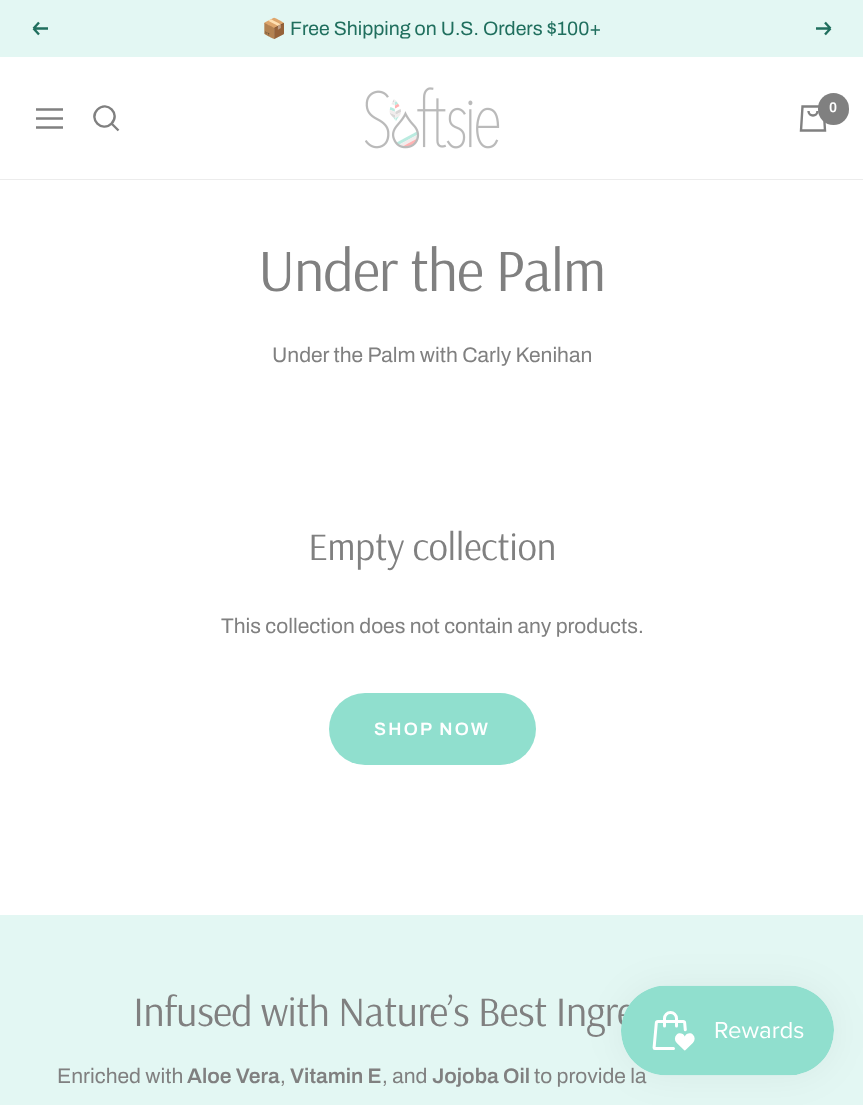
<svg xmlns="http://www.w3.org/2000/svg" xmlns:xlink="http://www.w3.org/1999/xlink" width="863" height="1105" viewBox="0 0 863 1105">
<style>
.cls-1{font:19.5px Noto Color Emoji;fill:#206f5e}
.cls-2{font:600 19.5px Archivo;fill:#206f5e}
.cls-3{font:600 14px 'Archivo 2';fill:#ffffff}
.cls-4{font:60px Arsenal;letter-spacing:-1.4px;fill:#808080}
.cls-5{font:600 21px Archivo;fill:#808080}
.cls-6{font:39px Arsenal;letter-spacing:-0.5px;fill:#808080}
.cls-7{font:600 18px 'Archivo 2';letter-spacing:2.25px;fill:#ffffff}
.cls-8{font:42px Arsenal;letter-spacing:-0.9px;fill:#808080}
.cls-9{font:600 21px 'Archivo 2';fill:#808080}
</style>
<rect width="100%" height="100%" fill="#ffffff"/>
<rect fill="#e3f7f3" x="0" y="0" width="863" height="57"/>
<path fill="none" stroke="#206f5e" stroke-width="2.4" d="M48 28.5H33.5M33.5 28.5L39 34.5M33.5 28.5L39 22.5"/>
<path fill="none" stroke="#206f5e" stroke-width="2.4" d="M816 28.5H830.5M830.5 28.5L825 34.5M830.5 28.5L825 22.5"/>
<rect fill="#ececec" x="0" y="179" width="863" height="1"/>
<path fill="none" stroke="#808080" stroke-width="2.4" d="M36 109.5H63M36 127.5H63ZM36 118.5H63Z"/>
<path fill="none" stroke="#808080" stroke-width="2.4" d="M111.5 123.5C121 114 107 100 97.5 109.5C88 119 102 133 111.5 123.5ZM111.5 123.5L118.5 130.5"/>
<image xlink:href="image0.png" x="365" y="87" width="135" height="62"/>
<path fill="none" stroke="#808080" stroke-width="2.4" d="M802.5 106.5H823.5L825 130.5H801ZM808.5 111C808.5 117 817.5 117 817.5 111"/>
<rect fill="#808080" x="818" y="93" width="31" height="32" rx="15.5"/>
<rect fill="#90dfce" x="329" y="693" width="207" height="72" rx="36"/>
<rect fill="#e3f7f3" x="0" y="915" width="863" height="190"/>
<rect fill="#000000" fill-opacity="0.05" filter="blur(19px)" x="621" y="986" width="213" height="90" rx="45"/>
<text class="cls-1" x="262" y="35">📦</text>
<text class="cls-2" x="290" y="35">Free Shipping on U.S. Orders $100+</text>
<text class="cls-3" x="829" y="112">0</text>
<text class="cls-4" x="258" y="291">Under the Palm</text>
<text class="cls-5" x="272" y="362">Under the Palm with Carly Kenihan</text>
<text class="cls-6" x="308" y="560">Empty collection</text>
<text class="cls-5" x="221" y="633">This collection does not contain any products.</text>
<text class="cls-7" x="374" y="735">SHOP NOW</text>
<text class="cls-8" x="133" y="1026">Infused with Nature’s Best Ingre</text>
<text class="cls-5" x="57" y="1083">Enriched with</text>
<text class="cls-9" x="187" y="1083">Aloe Vera</text>
<text class="cls-5" x="280" y="1083">,</text>
<text class="cls-9" x="290" y="1083">Vitamin E</text>
<text class="cls-5" x="382" y="1083">, and</text>
<text class="cls-9" x="432" y="1083">Jojoba Oil</text>
<text class="cls-5" x="534" y="1083">to provide la</text>
<image xlink:href="image1.png" x="621" y="985" width="213" height="91"/>
</svg>
